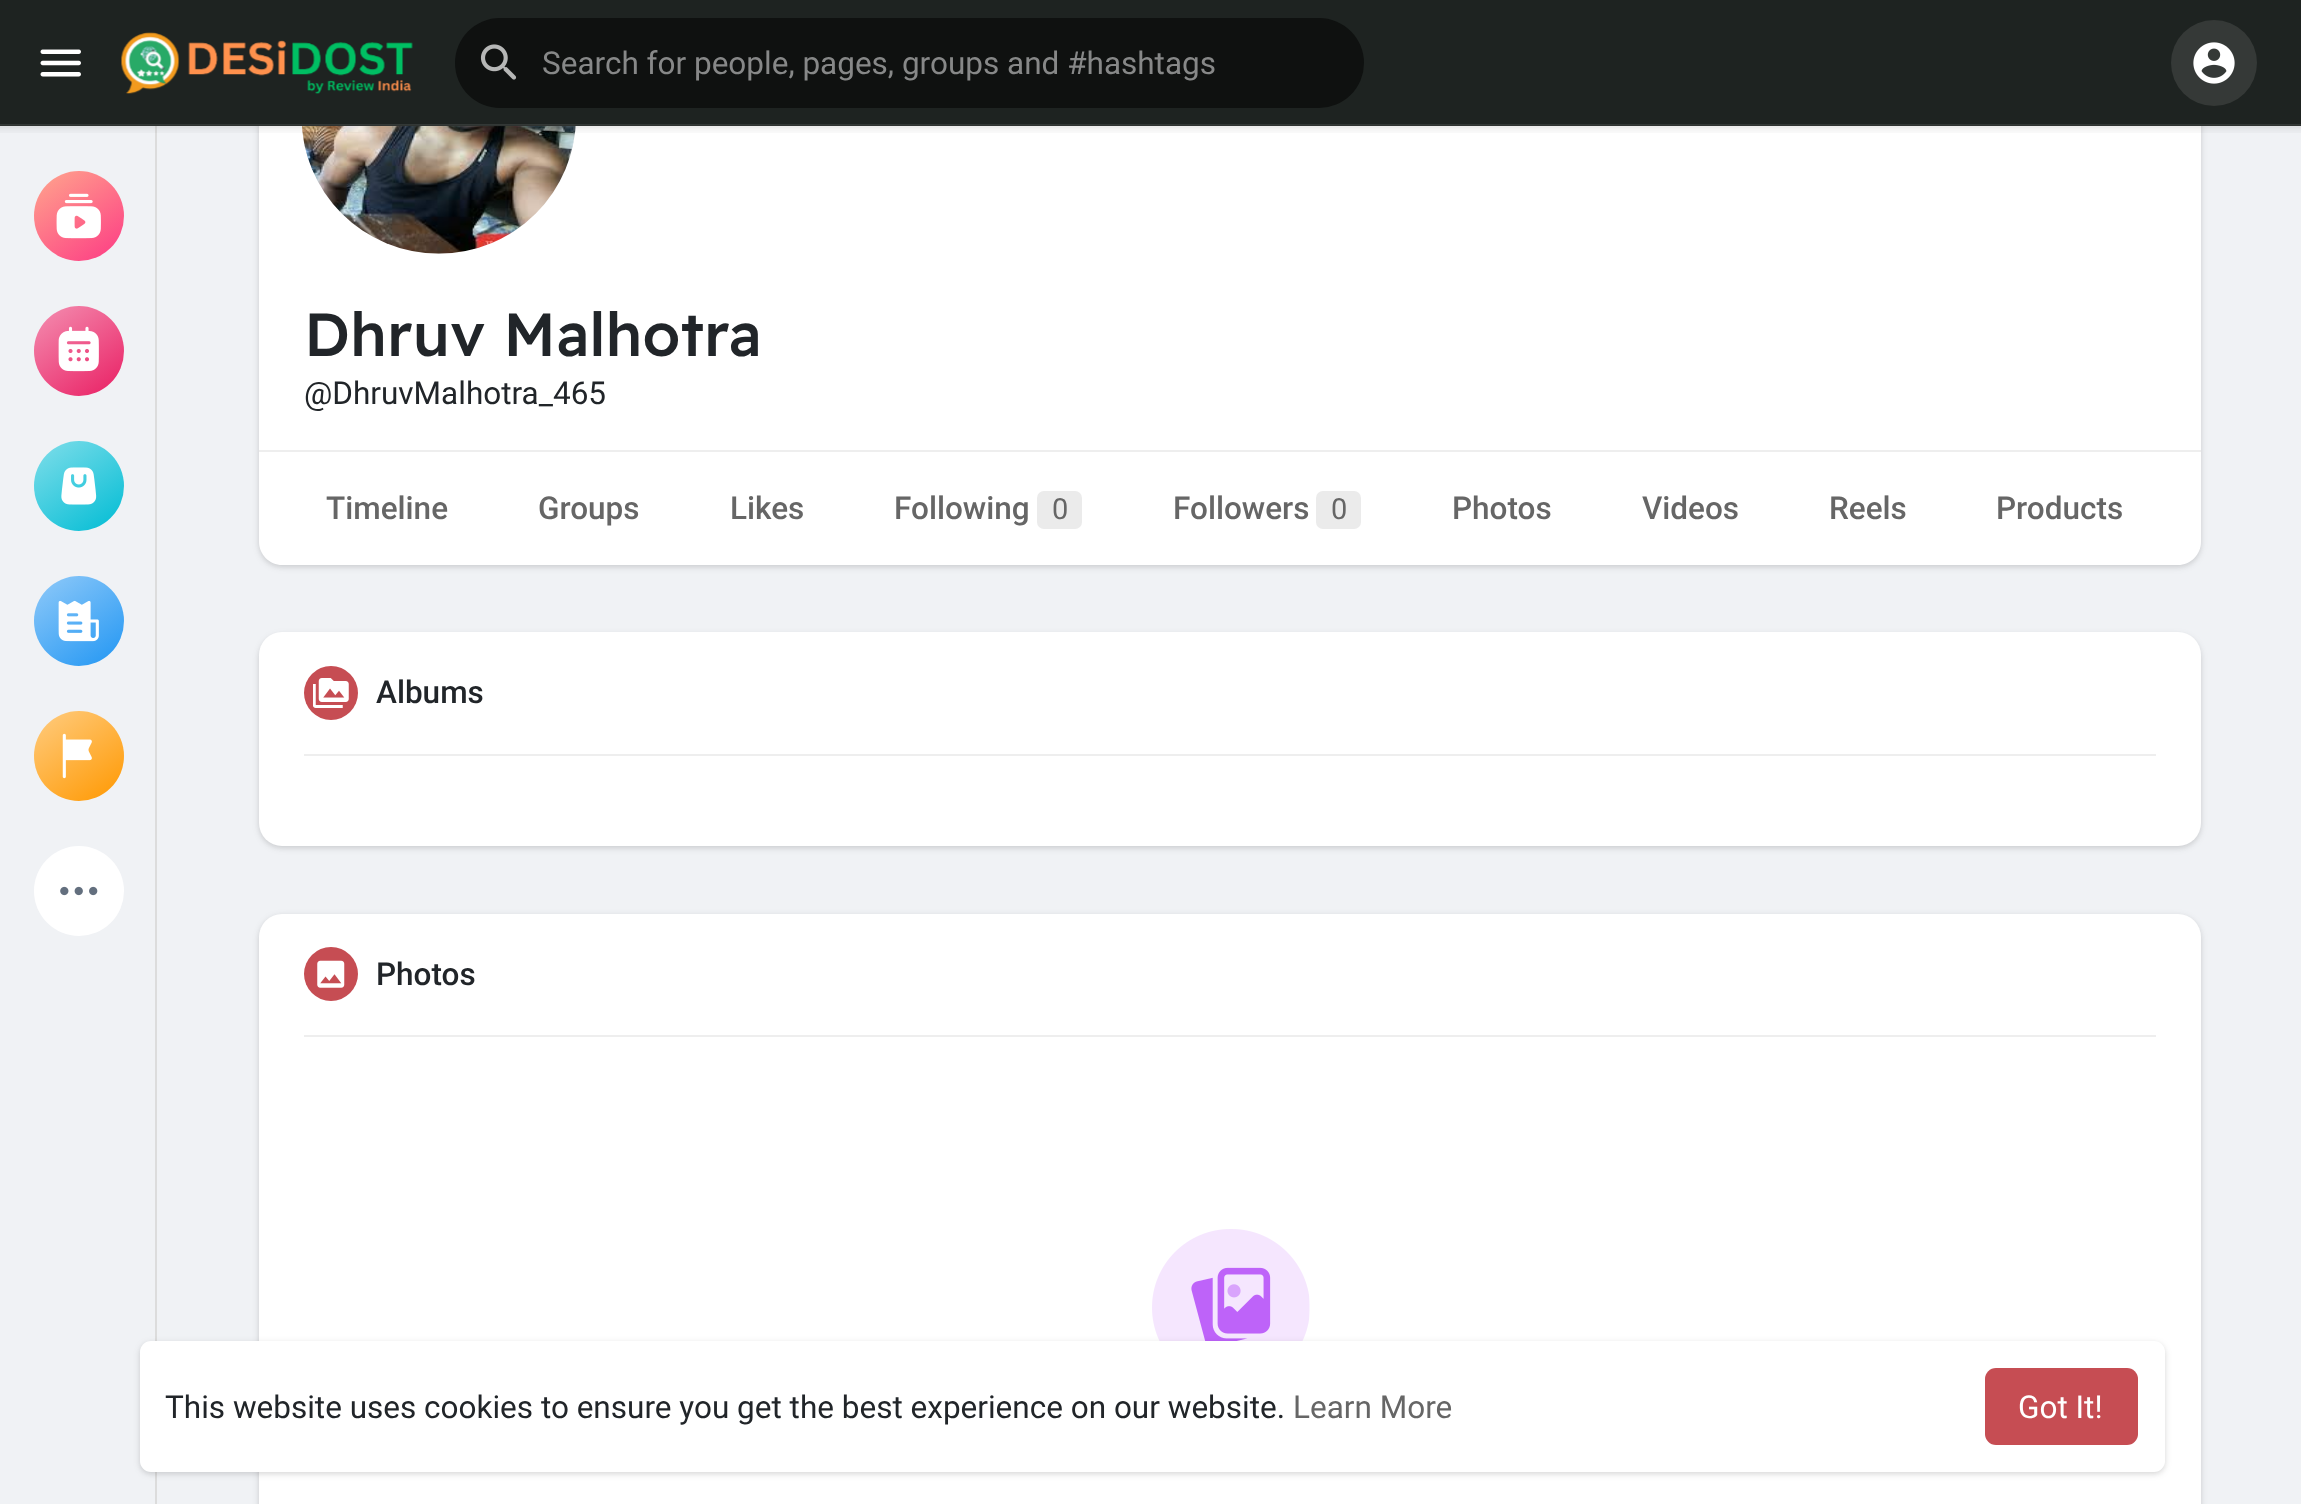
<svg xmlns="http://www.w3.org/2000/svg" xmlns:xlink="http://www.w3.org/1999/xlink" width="2301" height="1504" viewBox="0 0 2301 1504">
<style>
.cls-1{font:31.5px Roboto;fill:#878888}
.cls-2{font:500 60.75px Readex Pro;fill:#212529}
.cls-3{font:31.5px Roboto;fill:#212529}
.cls-4{font:500 31.5px Roboto;fill:#666666}
.cls-5{font:29px Roboto;fill:#666666}
.cls-6{font:500 31.5px Roboto;fill:#212529}
.cls-7{font:31.5px Roboto;fill:#666666}
.cls-8{font:31.5px Roboto;fill:#ffffff}
</style>
<defs>
<linearGradient id="g1" gradientUnits="userSpaceOnUse" x1="43" y1="165" x2="115" y2="267"><stop offset="0" stop-color="#ffa68d"/><stop offset="1" stop-color="#fd3a84"/></linearGradient>
<linearGradient id="g2" gradientUnits="userSpaceOnUse" x1="43" y1="300" x2="115" y2="402"><stop offset="0" stop-color="#f48fb1"/><stop offset="1" stop-color="#e91e63"/></linearGradient>
<linearGradient id="g3" gradientUnits="userSpaceOnUse" x1="43" y1="435" x2="115" y2="537"><stop offset="0" stop-color="#80deea"/><stop offset="1" stop-color="#00bcd4"/></linearGradient>
<linearGradient id="g4" gradientUnits="userSpaceOnUse" x1="43" y1="570" x2="115" y2="672"><stop offset="0" stop-color="#90caf9"/><stop offset="1" stop-color="#2196f3"/></linearGradient>
<linearGradient id="g5" gradientUnits="userSpaceOnUse" x1="43" y1="705" x2="115" y2="807"><stop offset="0" stop-color="#ffcc80"/><stop offset="1" stop-color="#ff9800"/></linearGradient>
</defs>
<rect width="100%" height="100%" fill="#f0f2f5"/>
<rect fill="#000000" fill-opacity="0.06" filter="blur(2px)" x="259" y="97" width="1942" height="470" rx="23"/>
<rect fill="#000000" fill-opacity="0.1" filter="blur(3.5px)" x="259" y="97" width="1942" height="470" rx="23"/>
<path fill="#ffffff" d="M259 95H2201V542C2201 554.5 2190.5 565 2178 565H282C269.5 565 259 554.5 259 542Z"/>
<circle fill="#ffffff" cx="439" cy="117" r="146"/>
<rect fill="#1e2321" x="0" y="0" width="2301" height="126"/>
<image xlink:href="image0.png" x="40" y="49" width="41" height="28"/>
<image xlink:href="image1.png" x="121" y="32" width="292" height="62"/>
<rect fill="#0f1110" x="455" y="18" width="909" height="90" rx="45"/>
<image xlink:href="image2.png" x="480" y="44" width="37" height="36"/>
<rect fill="#dcdcdc" x="155" y="126" width="2" height="1378"/>
<image xlink:href="image11.png" x="302" y="126" width="274" height="128"/>
<image xlink:href="image3.png" x="0" y="124" width="2301" height="9"/>
<circle fill="#353937" cx="2214" cy="63" r="43"/>
<image xlink:href="image4.png" x="2193" y="42" width="42" height="42"/>
<circle fill="url(#g1)" cx="79" cy="216" r="45"/>
<image xlink:href="image5.png" x="56" y="193" width="45" height="46"/>
<circle fill="url(#g2)" cx="79" cy="351" r="45"/>
<image xlink:href="image6.png" x="58" y="326" width="41" height="46"/>
<circle fill="url(#g3)" cx="79" cy="486" r="45"/>
<image xlink:href="image7.png" x="61" y="467" width="36" height="38"/>
<circle fill="url(#g4)" cx="79" cy="621" r="45"/>
<image xlink:href="image8.png" x="58" y="600" width="41" height="42"/>
<circle fill="url(#g5)" cx="79" cy="756" r="45"/>
<image xlink:href="image9.png" x="62" y="733" width="30" height="46"/>
<circle fill="#ffffff" cx="79" cy="891" r="45"/>
<image xlink:href="image10.png" x="60" y="886" width="38" height="10"/>
<rect fill="#eeeeee" x="259" y="450" width="1942" height="2"/>
<rect fill="#ebebeb" x="1037" y="491" width="45" height="38" rx="7"/>
<rect fill="#ebebeb" x="1316" y="491" width="45" height="38" rx="7"/>
<rect fill="#000000" fill-opacity="0.06" filter="blur(2px)" x="259" y="635" width="1942" height="213" rx="23"/>
<rect fill="#000000" fill-opacity="0.1" filter="blur(3.5px)" x="259" y="635" width="1942" height="213" rx="23"/>
<rect fill="#ffffff" x="259" y="632" width="1942" height="214" rx="23"/>
<rect fill="#eeeeee" x="304" y="754" width="1852" height="2"/>
<circle fill="#c64d53" cx="331" cy="693" r="27"/>
<image xlink:href="image12.png" x="313" y="678" width="36" height="30"/>
<rect fill="#000000" fill-opacity="0.06" filter="blur(2px)" x="259" y="916" width="1942" height="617" rx="23"/>
<rect fill="#000000" fill-opacity="0.1" filter="blur(3.5px)" x="259" y="916" width="1942" height="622" rx="23"/>
<rect fill="#ffffff" x="259" y="914" width="1942" height="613" rx="23"/>
<rect fill="#eeeeee" x="304" y="1035" width="1852" height="2"/>
<circle fill="#c64d53" cx="331" cy="974" r="27"/>
<image xlink:href="image13.png" x="317" y="960" width="28" height="28"/>
<image xlink:href="image14.png" x="1152" y="1229" width="158" height="112"/>
<rect fill="#000000" fill-opacity="0.06" filter="blur(2px)" x="140" y="1343" width="2025" height="131" rx="11"/>
<rect fill="#000000" fill-opacity="0.1" filter="blur(3.5px)" x="140" y="1343" width="2025" height="131" rx="11"/>
<rect fill="#ffffff" x="140" y="1341" width="2025" height="131" rx="11"/>
<rect fill="#c64d53" x="1985" y="1368" width="153" height="77" rx="11"/>
<text class="cls-1" x="542" y="74">Search for people, pages, groups and #hashtags</text>
<text class="cls-2" x="304" y="356">Dhruv Malhotra</text>
<text class="cls-3" x="304" y="404">@DhruvMalhotra_465</text>
<text class="cls-4" x="326" y="519">Timeline</text>
<text class="cls-4" x="538" y="519">Groups</text>
<text class="cls-4" x="730" y="519">Likes</text>
<text class="cls-4" x="894" y="519">Following</text>
<text class="cls-5" x="1052" y="519">0</text>
<text class="cls-4" x="1173" y="519">Followers</text>
<text class="cls-5" x="1331" y="519">0</text>
<text class="cls-4" x="1452" y="519">Photos</text>
<text class="cls-4" x="1642" y="519">Videos</text>
<text class="cls-4" x="1829" y="519">Reels</text>
<text class="cls-4" x="1996" y="519">Products</text>
<text class="cls-6" x="376" y="703">Albums</text>
<text class="cls-6" x="376" y="985">Photos</text>
<text class="cls-3" x="165" y="1418">This website uses cookies to ensure you get the best experience on our website.</text>
<text class="cls-7" x="1293" y="1418">Learn More</text>
<text class="cls-8" x="2018" y="1418">Got It!</text>
</svg>
